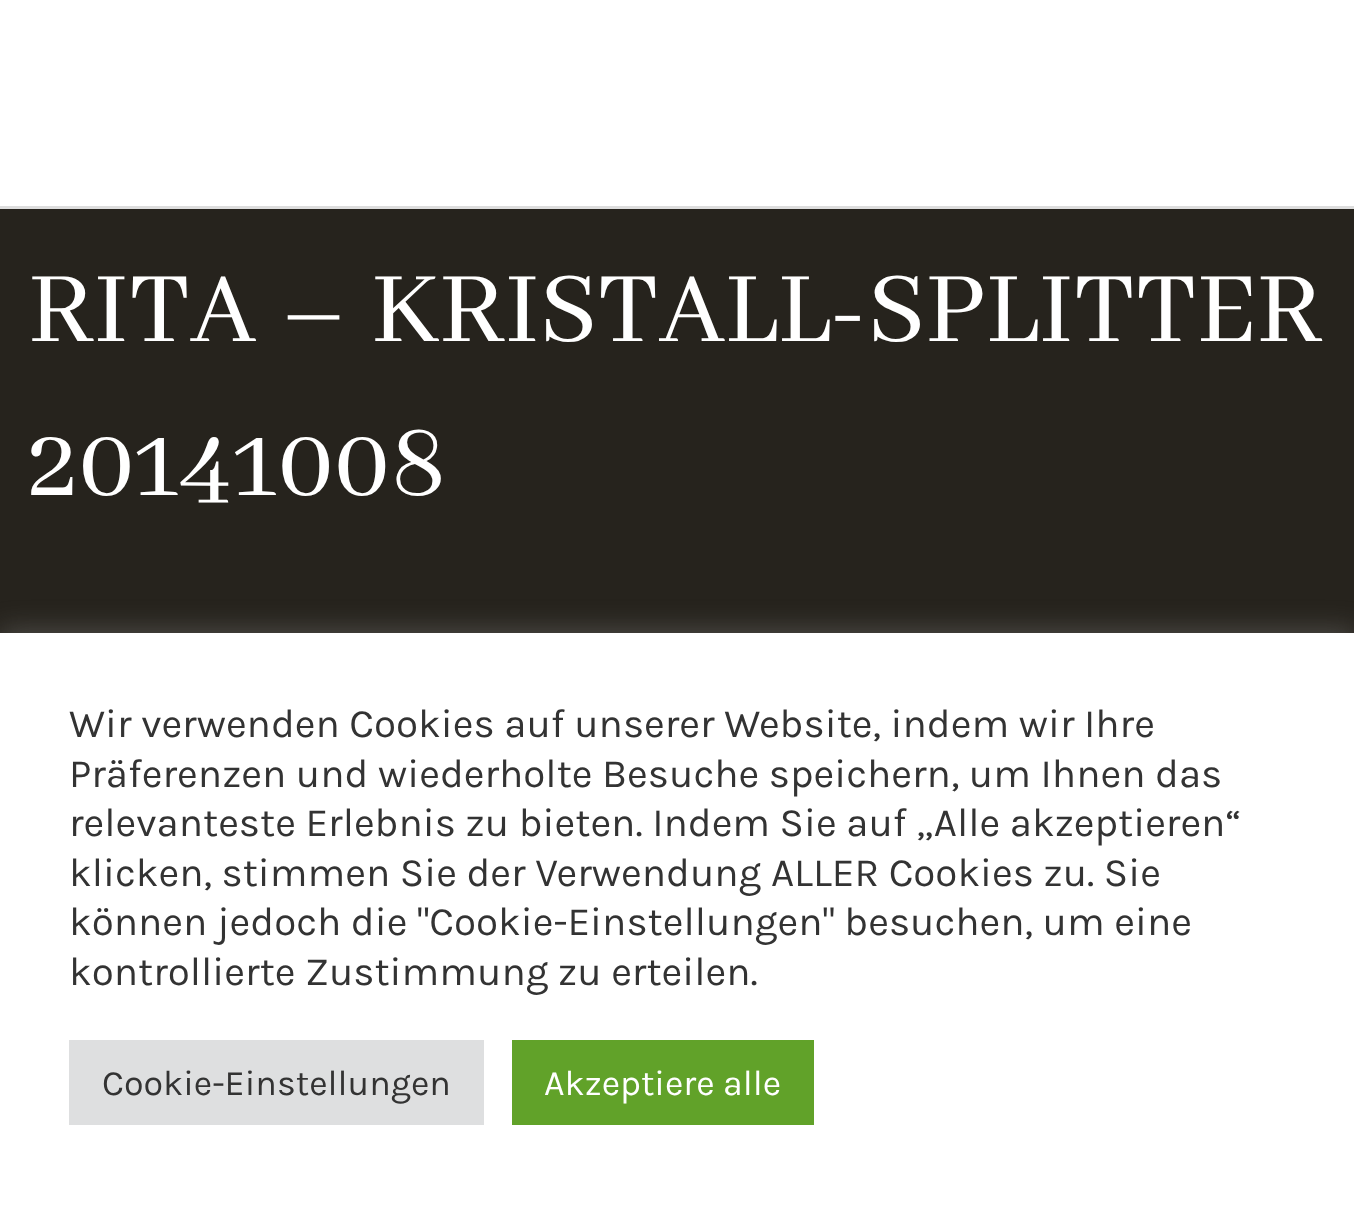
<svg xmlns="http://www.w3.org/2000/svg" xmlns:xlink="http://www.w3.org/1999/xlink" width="1354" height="1207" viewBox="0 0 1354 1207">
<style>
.cls-1{font:110px Abhaya Libre;fill:#ffffff}
.cls-2{font:40.3px Karla;fill:#333333}
.cls-3{font:35.75px Karla;fill:#333333}
.cls-4{font:35.75px Karla;fill:#ffffff}
</style>
<rect width="100%" height="100%" fill="#26231d"/>
<rect fill="#ffffff" x="0" y="0" width="1354" height="206"/>
<rect fill="#dddddd" x="0" y="206" width="1354" height="3"/>
<rect fill="#acabab" fill-opacity="0.3" filter="blur(14px)" x="0" y="630" width="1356" height="575"/>
<rect fill="#ffffff" x="0" y="633" width="1354" height="574"/>
<rect fill="#dedfe0" x="69" y="1040" width="415" height="85"/>
<rect fill="#61a229" x="512" y="1040" width="302" height="85"/>
<text class="cls-1"><tspan x="28" y="341">RITA – KRISTALL-SPLITTER</tspan><tspan x="28" y="495">20141008</tspan></text>
<text class="cls-2"><tspan x="69" y="737">Wir verwenden Cookies auf unserer Website, indem wir Ihre</tspan><tspan x="69" y="787">Präferenzen und wiederholte Besuche speichern, um Ihnen das</tspan><tspan x="69" y="836">relevanteste Erlebnis zu bieten. Indem Sie auf „Alle akzeptieren“</tspan><tspan x="69" y="886">klicken, stimmen Sie der Verwendung ALLER Cookies zu. Sie</tspan><tspan x="69" y="935">können jedoch die "Cookie-Einstellungen" besuchen, um eine</tspan><tspan x="69" y="985">kontrollierte Zustimmung zu erteilen.</tspan></text>
<text class="cls-3" x="102" y="1095">Cookie-Einstellungen</text>
<text class="cls-4" x="544" y="1095">Akzeptiere alle</text>
</svg>
